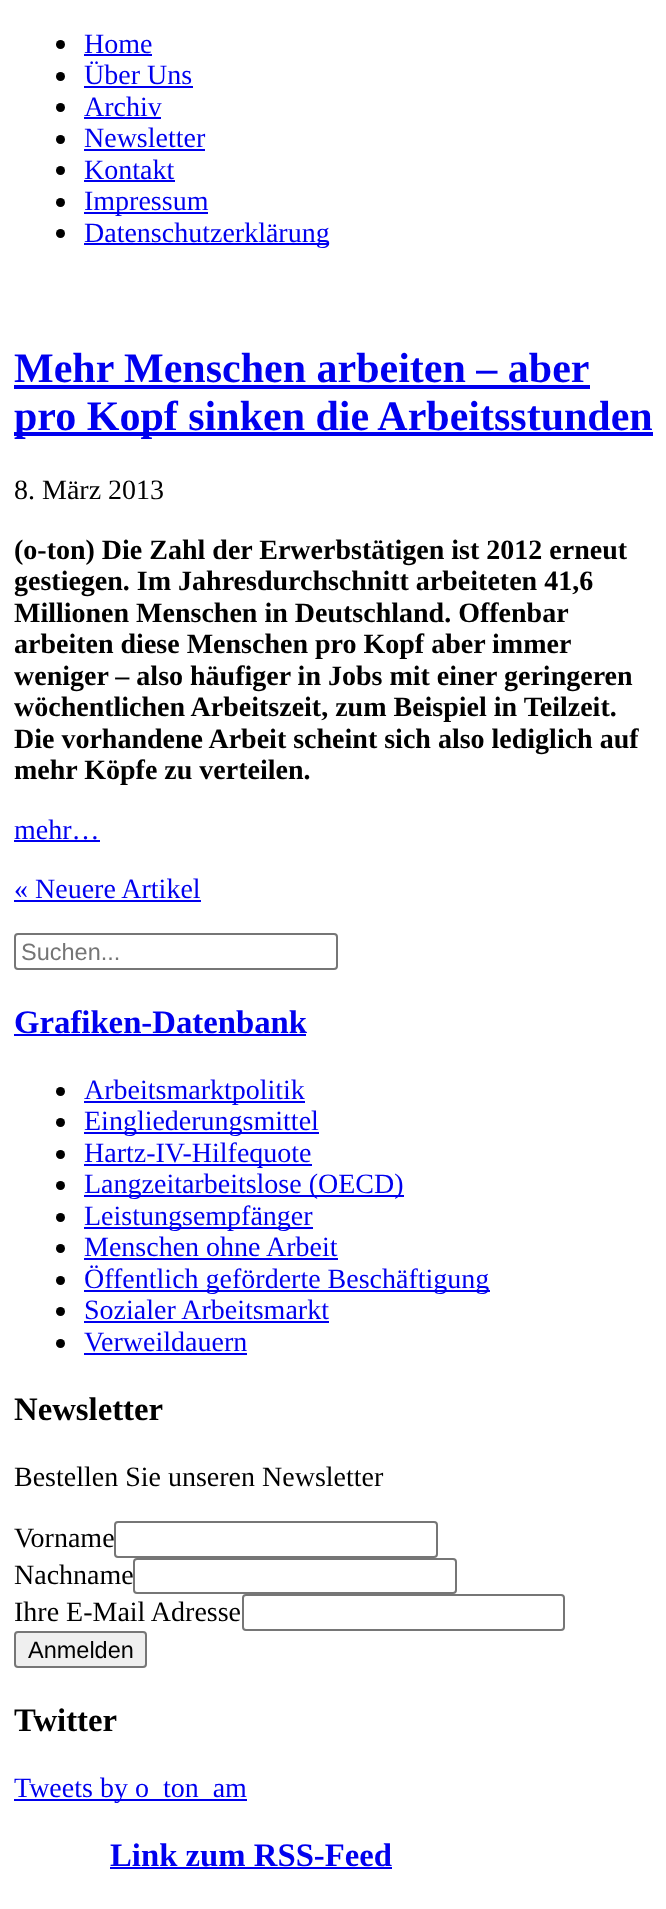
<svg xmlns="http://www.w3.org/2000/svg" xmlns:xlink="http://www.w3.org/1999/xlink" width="666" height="1909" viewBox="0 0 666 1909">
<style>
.cls-1{font:28px Liberation Serif;fill:#0000ee}
.cls-2{font:bold 42px Liberation Serif;fill:#0000ee}
.cls-3{font:28px Liberation Serif;fill:#000000}
.cls-4{font:bold 28px Liberation Serif;fill:#000000}
.cls-5{font:23.5px Liberation Sans;fill:#757575}
.cls-6{font:bold 32.75px Liberation Serif;fill:#0000ee}
.cls-7{font:bold 32.75px Liberation Serif;fill:#000000}
.cls-8{font:23.5px Liberation Sans;fill:#000000}
</style>
<rect width="100%" height="100%" fill="#ffffff"/>
<circle fill="#000000" cx="60.5" cy="44.5" r="4.5"/>
<rect fill="#0000ee" x="84" y="54" width="68" height="2"/>
<circle fill="#000000" cx="60.5" cy="76.5" r="4.5"/>
<rect fill="#0000ee" x="84" y="86" width="109" height="2"/>
<circle fill="#000000" cx="60.5" cy="107.5" r="4.5"/>
<rect fill="#0000ee" x="84" y="117" width="77" height="2"/>
<circle fill="#000000" cx="60.5" cy="139.5" r="4.5"/>
<rect fill="#0000ee" x="84" y="149" width="121" height="2"/>
<circle fill="#000000" cx="60.5" cy="170.5" r="4.5"/>
<rect fill="#0000ee" x="84" y="180" width="91" height="2"/>
<circle fill="#000000" cx="60.5" cy="202.5" r="4.5"/>
<rect fill="#0000ee" x="84" y="212" width="124" height="2"/>
<circle fill="#000000" cx="60.5" cy="233.5" r="4.5"/>
<rect fill="#0000ee" x="84" y="243" width="245" height="2"/>
<rect fill="#0000ee" x="14" y="385" width="576" height="4"/>
<rect fill="#0000ee" x="14" y="432" width="639" height="4"/>
<rect fill="#0000ee" x="14" y="840" width="86" height="2"/>
<rect fill="#0000ee" x="14" y="900" width="187" height="2"/>
<rect fill="none" stroke="#767676" stroke-width="2" x="15" y="934" width="322" height="35" rx="3"/>
<rect fill="#0000ee" x="14" y="1034" width="292" height="2"/>
<circle fill="#000000" cx="60.5" cy="1091.5" r="4.5"/>
<rect fill="#0000ee" x="84" y="1101" width="221" height="2"/>
<circle fill="#000000" cx="60.5" cy="1122.5" r="4.5"/>
<rect fill="#0000ee" x="84" y="1132" width="235" height="2"/>
<circle fill="#000000" cx="60.5" cy="1154.5" r="4.5"/>
<rect fill="#0000ee" x="84" y="1164" width="228" height="2"/>
<circle fill="#000000" cx="60.5" cy="1185.5" r="4.5"/>
<rect fill="#0000ee" x="84" y="1195" width="320" height="2"/>
<circle fill="#000000" cx="60.5" cy="1217.5" r="4.5"/>
<rect fill="#0000ee" x="84" y="1227" width="229" height="2"/>
<circle fill="#000000" cx="60.5" cy="1248.5" r="4.5"/>
<rect fill="#0000ee" x="84" y="1258" width="254" height="2"/>
<circle fill="#000000" cx="60.5" cy="1280.5" r="4.5"/>
<rect fill="#0000ee" x="84" y="1290" width="406" height="2"/>
<circle fill="#000000" cx="60.5" cy="1311.5" r="4.5"/>
<rect fill="#0000ee" x="84" y="1321" width="245" height="2"/>
<circle fill="#000000" cx="60.5" cy="1343.5" r="4.5"/>
<rect fill="#0000ee" x="84" y="1353" width="163" height="2"/>
<rect fill="none" stroke="#767676" stroke-width="2" x="115" y="1522" width="322" height="35" rx="3"/>
<rect fill="none" stroke="#767676" stroke-width="2" x="134" y="1559" width="322" height="34" rx="3"/>
<rect fill="none" stroke="#767676" stroke-width="2" x="243" y="1595" width="321" height="35" rx="3"/>
<rect fill="#efefef" stroke="#767676" stroke-width="2" x="15" y="1632" width="131" height="35" rx="3"/>
<rect fill="#0000ee" x="14" y="1799" width="233" height="2"/>
<rect fill="#0000ee" x="110" y="1867" width="282" height="2"/>
<text class="cls-1"><tspan x="84" y="53">Home</tspan><tspan x="84" y="84">Über Uns</tspan><tspan x="84" y="116">Archiv</tspan><tspan x="84" y="147">Newsletter</tspan><tspan x="84" y="179">Kontakt</tspan><tspan x="84" y="210">Impressum</tspan><tspan x="84" y="242">Datenschutzerklärung</tspan></text>
<text class="cls-2"><tspan x="14" y="382">Mehr Menschen arbeiten – aber</tspan><tspan x="14" y="430">pro Kopf sinken die Arbeitsstunden</tspan></text>
<text class="cls-3" x="14" y="499">8. März 2013</text>
<text class="cls-4"><tspan x="14" y="559">(o-ton) Die Zahl der Erwerbstätigen ist 2012 erneut</tspan><tspan x="14" y="590">gestiegen. Im Jahresdurchschnitt arbeiteten 41,6</tspan><tspan x="14" y="622">Millionen Menschen in Deutschland. Offenbar</tspan><tspan x="14" y="653">arbeiten diese Menschen pro Kopf aber immer</tspan><tspan x="14" y="685">weniger – also häufiger in Jobs mit einer geringeren</tspan><tspan x="14" y="716">wöchentlichen Arbeitszeit, zum Beispiel in Teilzeit.</tspan><tspan x="14" y="748">Die vorhandene Arbeit scheint sich also lediglich auf</tspan><tspan x="14" y="779">mehr Köpfe zu verteilen.</tspan></text>
<text class="cls-1" x="14" y="839">mehr…</text>
<text class="cls-1" x="14" y="898">« Neuere Artikel</text>
<text class="cls-5" x="21" y="960">Suchen...</text>
<text class="cls-6" x="14" y="1033">Grafiken-Datenbank</text>
<text class="cls-1"><tspan x="84" y="1099">Arbeitsmarktpolitik</tspan><tspan x="84" y="1130">Eingliederungsmittel</tspan><tspan x="84" y="1162">Hartz-IV-Hilfequote</tspan><tspan x="84" y="1193">Langzeitarbeitslose (OECD)</tspan><tspan x="84" y="1225">Leistungsempfänger</tspan><tspan x="84" y="1256">Menschen ohne Arbeit</tspan><tspan x="84" y="1288">Öffentlich geförderte Beschäftigung</tspan><tspan x="84" y="1319">Sozialer Arbeitsmarkt</tspan><tspan x="84" y="1351">Verweildauern</tspan></text>
<text class="cls-7" x="14" y="1420">Newsletter</text>
<text class="cls-3" x="14" y="1486">Bestellen Sie unseren Newsletter</text>
<text class="cls-3"><tspan x="14" y="1547">Vorname</tspan><tspan x="14" y="1584">Nachname</tspan><tspan x="14" y="1621">Ihre E-Mail Adresse</tspan></text>
<text class="cls-8" x="28" y="1658">Anmelden</text>
<text class="cls-7" x="14" y="1731">Twitter</text>
<text class="cls-1" x="14" y="1797">Tweets by o_ton_am</text>
<text class="cls-6" x="110" y="1866">Link zum RSS-Feed</text>
</svg>
